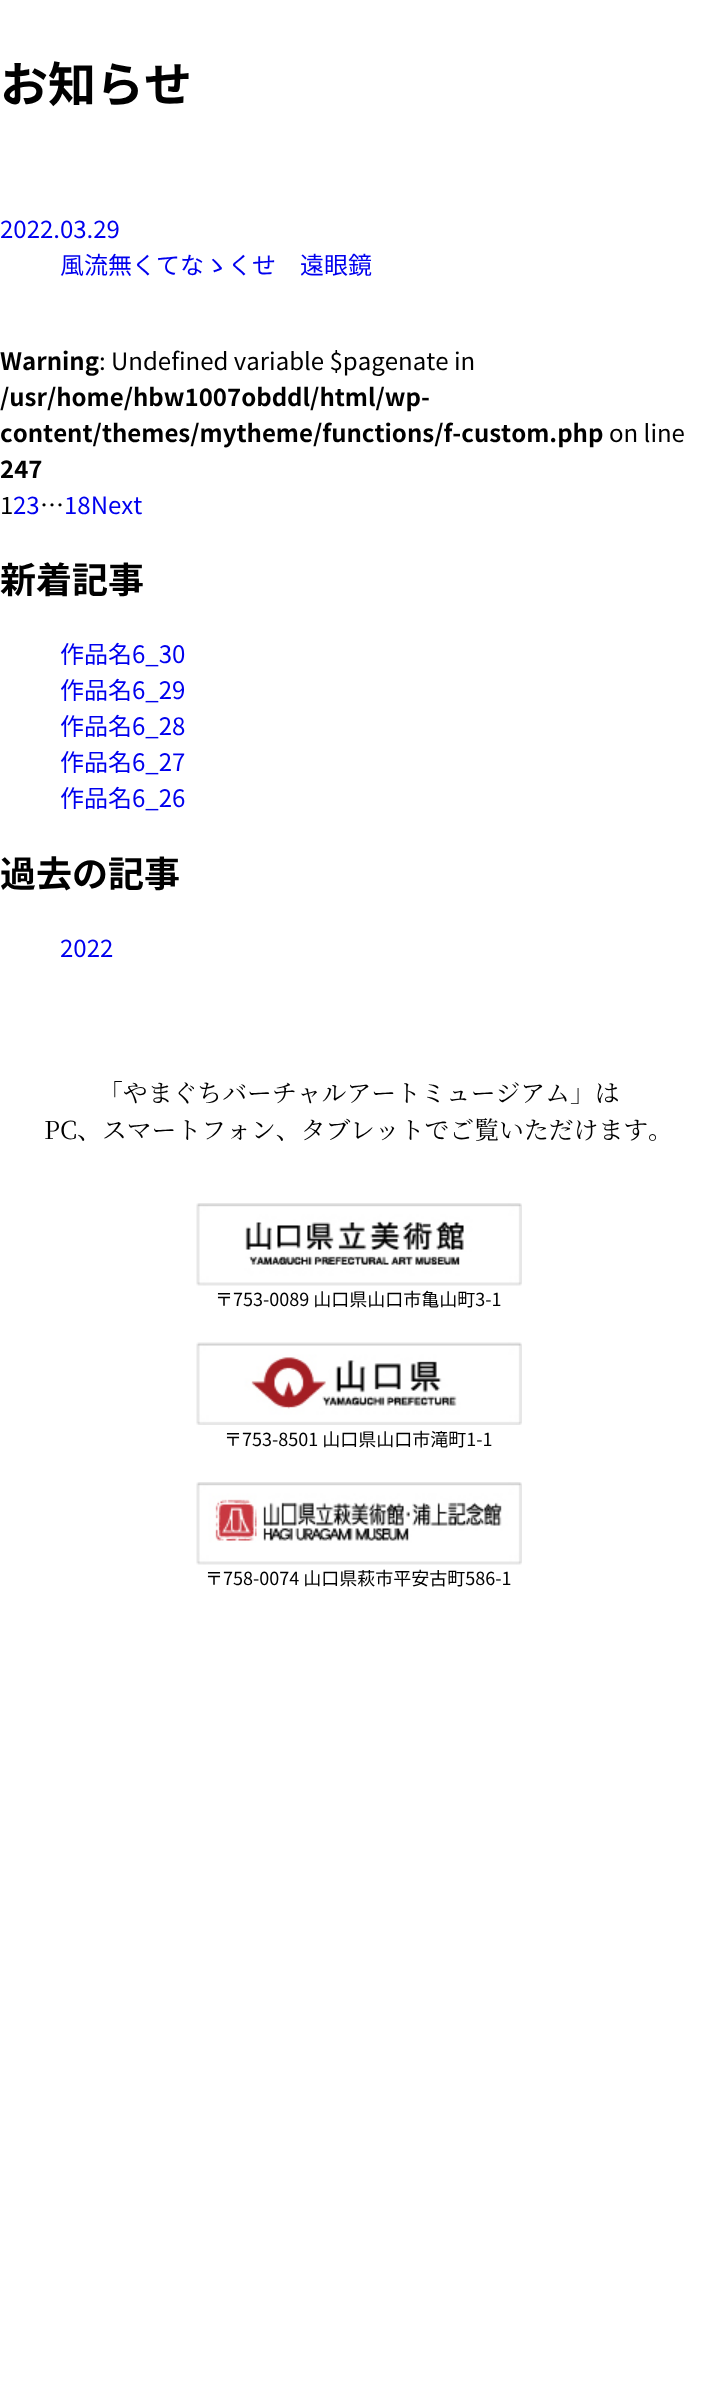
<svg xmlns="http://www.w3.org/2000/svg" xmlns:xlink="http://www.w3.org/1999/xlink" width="716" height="2388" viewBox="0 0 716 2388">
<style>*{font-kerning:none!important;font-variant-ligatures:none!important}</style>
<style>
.cls-1{font:bold 48px Noto Sans JP;fill:#000000}
.cls-2{font:24px Noto Sans JP;fill:#0000ee}
.cls-3{font:bold 24px Noto Sans JP;fill:#000000}
.cls-4{font:24px Noto Sans JP;fill:#000000}
.cls-5{font:bold 36px Noto Sans JP;fill:#000000}
.cls-6{font:24.85px Noto Serif JP;fill:#000000}
.cls-7{font:18px Noto Sans JP;fill:#000000}
</style>
<rect width="100%" height="100%" fill="#ffffff"/>
<image xlink:href="image0.png" x="196" y="1203" width="326" height="83"/>
<image xlink:href="image1.png" x="196" y="1342" width="326" height="83"/>
<image xlink:href="image2.png" x="196" y="1482" width="326" height="83"/>
<text class="cls-1" x="0" y="102">お知らせ</text>
<text class="cls-2" x="0" y="238">2022.03.29</text>
<text class="cls-2" x="60" y="274">風流無くてなゝくせ　遠眼鏡</text>
<text class="cls-3" x="0" y="370">Warning</text>
<text class="cls-4" x="99" y="370">: Undefined variable $pagenate in</text>
<text class="cls-3"><tspan x="0" y="406">/usr/home/hbw1007obddl/html/wp-</tspan><tspan x="0" y="442">content/themes/mytheme/functions/f-custom.php</tspan></text>
<text class="cls-4" x="609" y="442">on line</text>
<text class="cls-3" x="0" y="478">247</text>
<text class="cls-4" x="0" y="514">1</text>
<text class="cls-2" x="13" y="514">23</text>
<text class="cls-4" x="40" y="514">…</text>
<text class="cls-2" x="64" y="514">18Next</text>
<text class="cls-5" x="0" y="593">新着記事</text>
<text class="cls-2"><tspan x="60" y="663">作品名6_30</tspan><tspan x="60" y="699">作品名6_29</tspan><tspan x="60" y="735">作品名6_28</tspan><tspan x="60" y="771">作品名6_27</tspan><tspan x="60" y="807">作品名6_26</tspan></text>
<text class="cls-5" x="0" y="887">過去の記事</text>
<text class="cls-2" x="60" y="957">2022</text>
<text class="cls-6" x="98" y="1102">「やまぐちバーチャルアートミュージアム」は</text>
<text class="cls-6" x="44" y="1139">PC、スマートフォン、タブ</text>
<text class="cls-6" x="350" y="1139">レットでご覧いただけます。</text>
<text class="cls-7" x="215" y="1306">〒753-0089 山口県山口市亀山町3-1</text>
<text class="cls-7" x="224" y="1446">〒753-8501 山口県山口市滝町1-1</text>
<text class="cls-7" x="205" y="1585">〒758-0074 山口県萩市平安古町586-1</text>
</svg>
